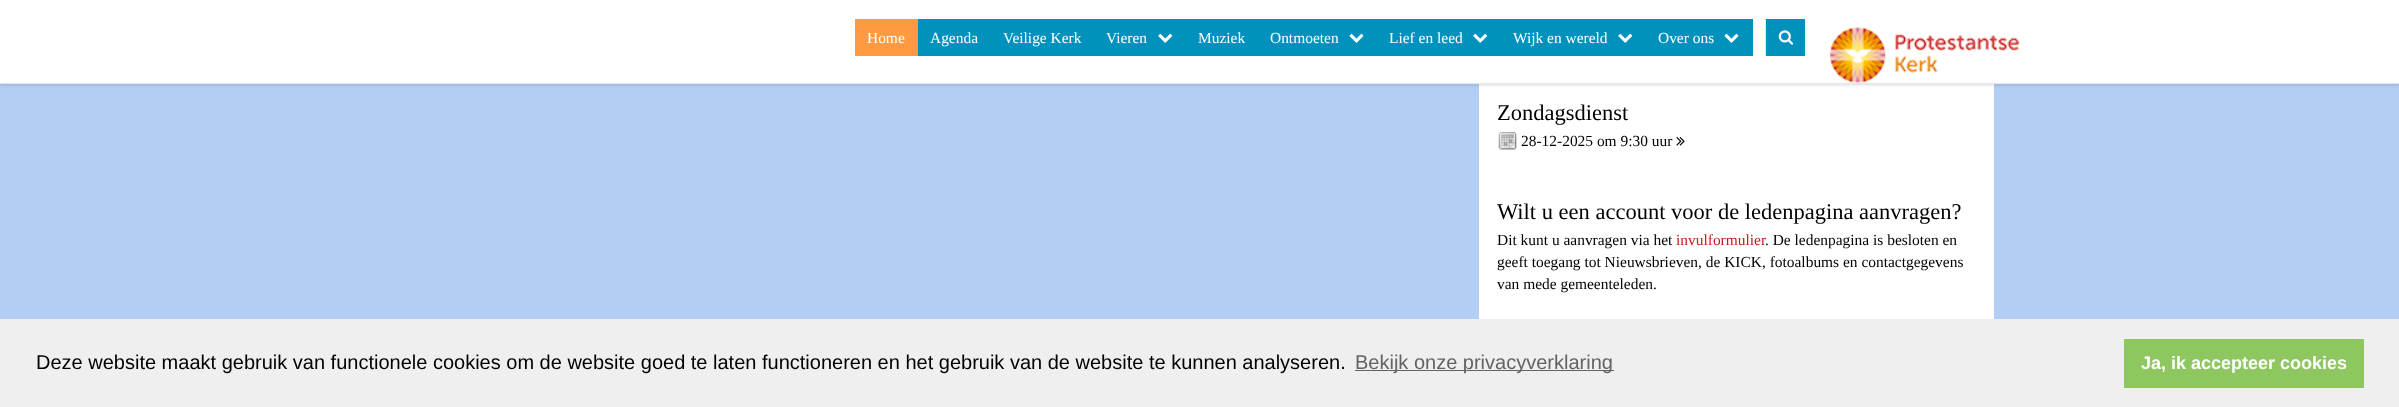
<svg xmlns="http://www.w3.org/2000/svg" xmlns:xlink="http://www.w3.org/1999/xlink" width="2399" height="407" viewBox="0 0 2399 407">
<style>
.cls-1{font:15.45px Liberation Serif;fill:#ffffff}
.cls-2{font:22.5px Liberation Serif;fill:#000000}
.cls-3{font:15.45px Liberation Serif;fill:#000000}
.cls-4{font:15.45px Liberation Serif;fill:#c21d1c}
.cls-5{font:20px Liberation Sans;fill:#000000}
.cls-6{font:20px Liberation Sans;fill:#636363}
.cls-7{font:bold 18px Liberation Sans;fill:#ffffff}
</style>
<rect width="100%" height="100%" fill="#b4cdf5"/>
<rect fill="#ffffff" x="1479" y="84" width="515" height="235"/>
<rect fill="#000000" fill-opacity="0.22" filter="blur(2px)" x="0" y="0" width="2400" height="84"/>
<rect fill="#ffffff" x="0" y="0" width="2399" height="83"/>
<rect fill="#e7e7e7" x="0" y="83" width="2399" height="1"/>
<rect fill="#ff9a40" x="855" y="19" width="63" height="37"/>
<rect fill="#0092bd" x="918" y="19" width="835" height="37"/>
<image xlink:href="image0.png" x="1158" y="33" width="15" height="10"/>
<image xlink:href="image1.png" x="1349" y="33" width="15" height="10"/>
<image xlink:href="image0.png" x="1473" y="33" width="15" height="10"/>
<image xlink:href="image0.png" x="1618" y="33" width="15" height="10"/>
<image xlink:href="image1.png" x="1724" y="33" width="15" height="10"/>
<rect fill="#0092bd" x="1766" y="19" width="39" height="37"/>
<rect fill="#e7e7e7" x="1765" y="19" width="1" height="37"/>
<image xlink:href="image2.png" x="1778" y="30" width="16" height="15"/>
<image xlink:href="image3.png" x="1830" y="27" width="189" height="56"/>
<image xlink:href="image4.png" x="1498" y="131" width="19" height="19"/>
<image xlink:href="image5.png" x="1676" y="137" width="9" height="9"/>
<rect fill="#efefef" x="0" y="319" width="2399" height="88"/>
<rect fill="#636363" x="1355" y="370" width="259" height="1"/>
<rect fill="#8ec760" x="2124" y="339" width="240" height="49"/>
<text class="cls-1" x="867" y="43">Home</text>
<text class="cls-1" x="930" y="43">Agenda</text>
<text class="cls-1" x="1003" y="43">Veilige Kerk</text>
<text class="cls-1" x="1106" y="43">Vieren</text>
<text class="cls-1" x="1198" y="43">Muziek</text>
<text class="cls-1" x="1270" y="43">Ontmoeten</text>
<text class="cls-1" x="1389" y="43">Lief en leed</text>
<text class="cls-1" x="1513" y="43">Wijk en wereld</text>
<text class="cls-1" x="1658" y="43">Over ons</text>
<text class="cls-2" x="1497" y="120">Zondagsdienst</text>
<text class="cls-3" x="1521" y="146">28-12-2025 om 9:30 uur</text>
<text class="cls-2" x="1497" y="219">Wilt u een account voor de ledenpagina aanvragen?</text>
<text class="cls-3" x="1497" y="245">Dit kunt u aanvragen via het</text>
<text class="cls-4" x="1676" y="245">invulformulier</text>
<text class="cls-3" x="1765" y="245">. De ledenpagina is besloten en</text>
<text class="cls-3"><tspan x="1497" y="267">geeft toegang tot Nieuwsbrieven, de KICK, fotoalbums en contactgegevens</tspan><tspan x="1497" y="289">van mede gemeenteleden.</tspan></text>
<text class="cls-5" x="36" y="369">Deze website maakt gebruik van functionele cookies om de website goed te laten functioneren en het gebruik van de website te kunnen analyseren.</text>
<text class="cls-6" x="1355" y="369">Bekijk onze privacyverklaring</text>
<text class="cls-7" x="2141" y="369">Ja, ik accepteer cookies</text>
</svg>
